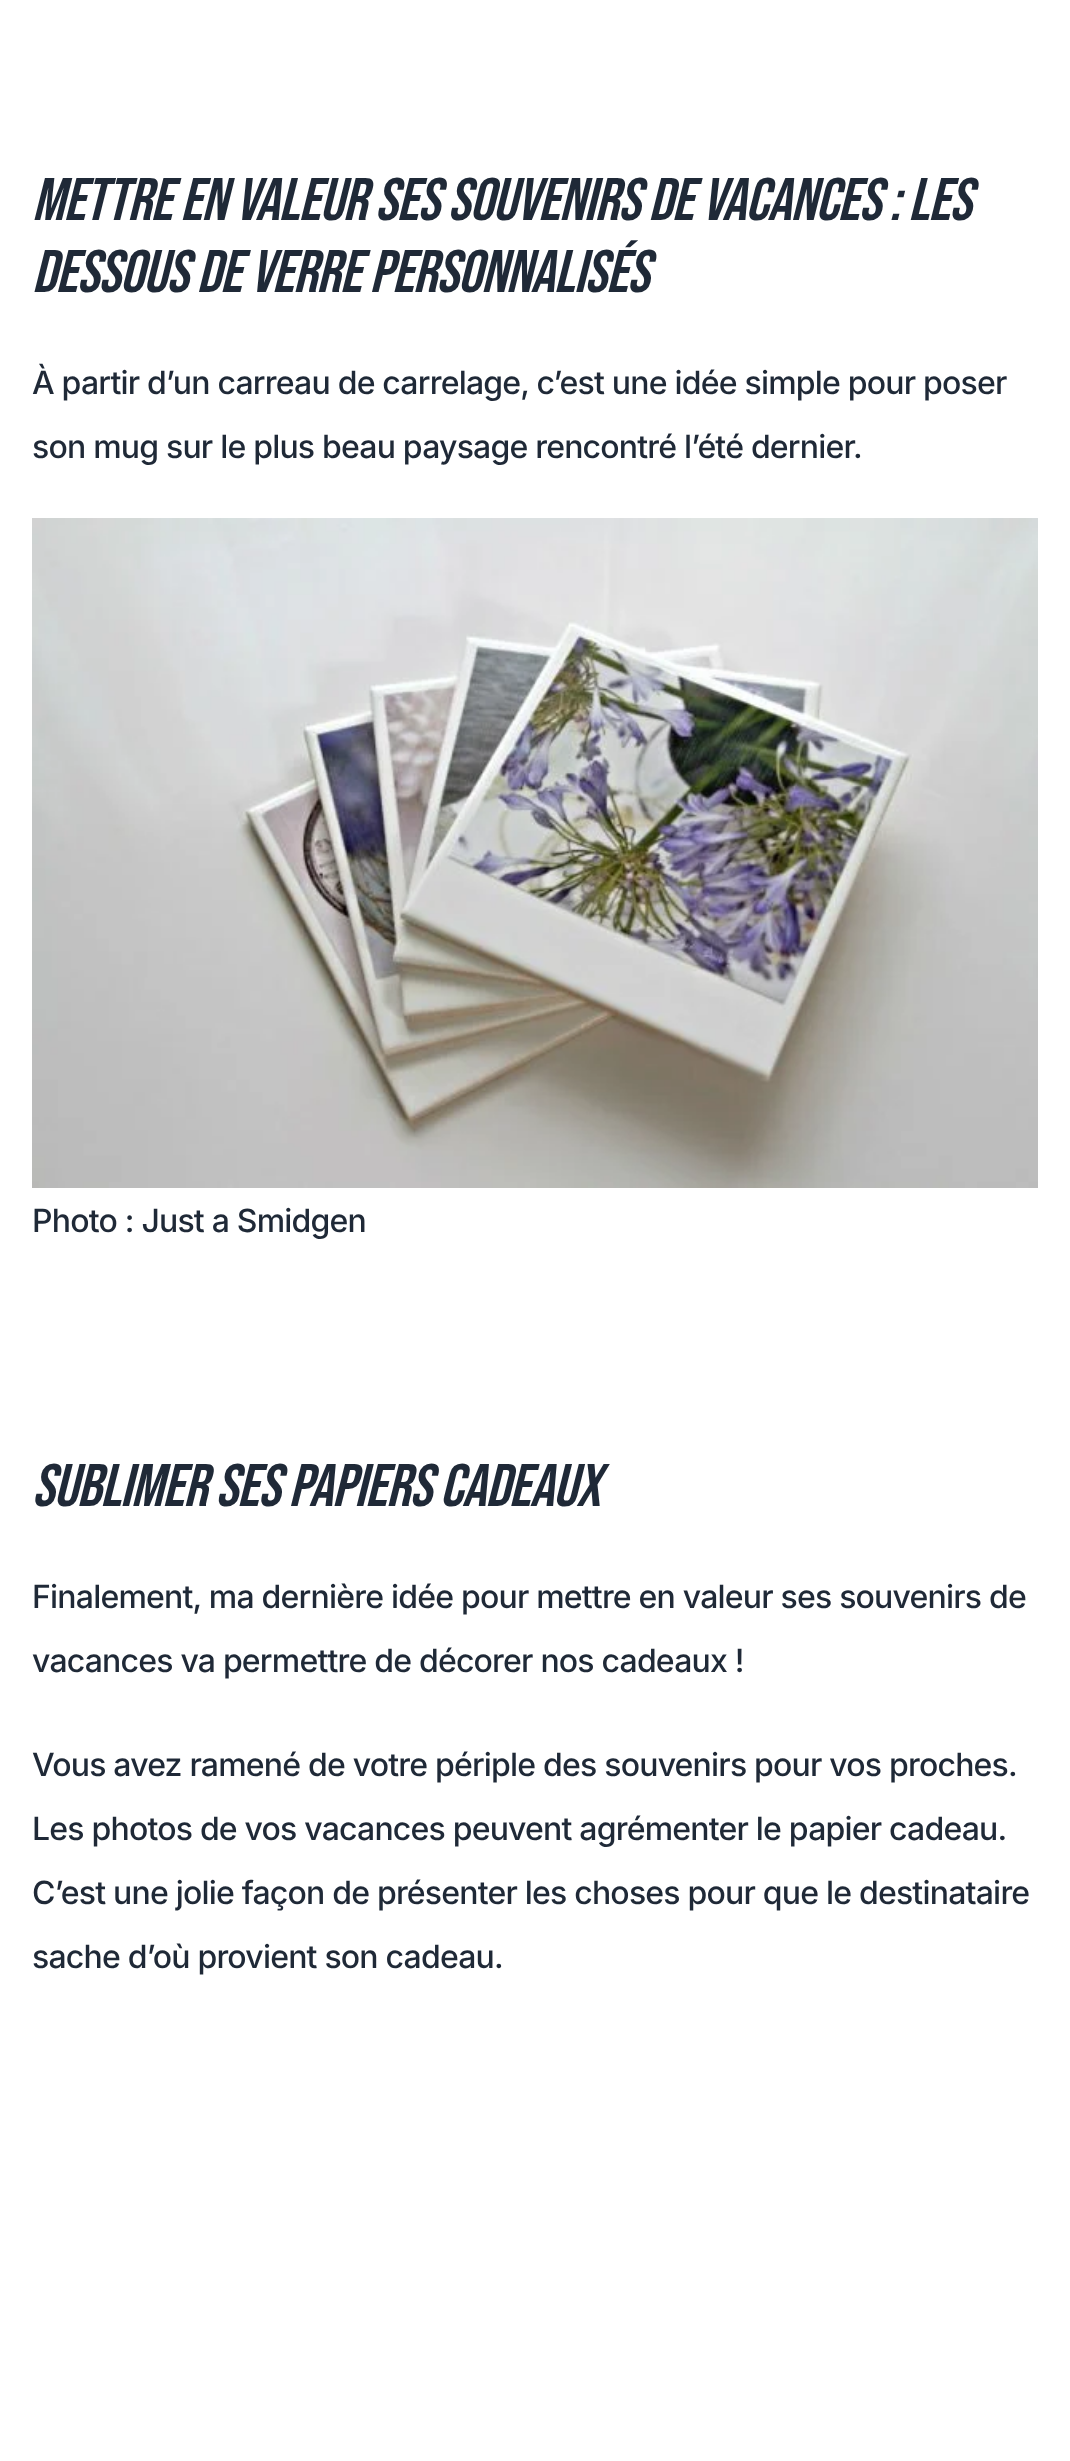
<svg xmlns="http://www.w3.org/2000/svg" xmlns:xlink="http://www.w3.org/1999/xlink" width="1070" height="2461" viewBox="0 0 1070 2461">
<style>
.cls-1{font:italic 60px Bebas Neue;letter-spacing:-0.8px;fill:#1f2937}
.cls-2{font:500 32px Inter;letter-spacing:-0.8px;fill:#1f2937}
</style>
<rect width="100%" height="100%" fill="#ffffff"/>
<image xlink:href="image0.png" x="32" y="518" width="1006" height="670"/>
<text class="cls-1"><tspan x="32" y="220">Mettre en valeur ses souvenirs de vacances : les</tspan><tspan x="32" y="292">dessous de verre personnalisés</tspan></text>
<text class="cls-2" x="32" y="394">À partir d’un carreau de carrelage, c’est une idée simple pour poser</text>
<text class="cls-2" x="32" y="458">son mug sur le plus beau paysage rencontré l’été dernier.</text>
<text class="cls-2" x="32" y="1232">Photo : Just a Smidgen</text>
<text class="cls-1" x="32" y="1506">Sublimer ses papiers cadeaux</text>
<text class="cls-2" x="32" y="1608">Finalement, ma dernière idée pour mettre en valeur ses souvenirs de</text>
<text class="cls-2" x="32" y="1672">vacances va permettre de décorer nos cadeaux !</text>
<text class="cls-2" x="32" y="1776">Vous avez ramené de votre périple des souvenirs pour vos proches.</text>
<text class="cls-2" x="32" y="1840">Les photos de vos vacances peuvent agrémenter le papier cadeau.</text>
<text class="cls-2" x="32" y="1904">C’est une jolie façon de présenter les choses pour que le destinataire</text>
<text class="cls-2" x="32" y="1968">sache d’où provient son cadeau.</text>
</svg>
